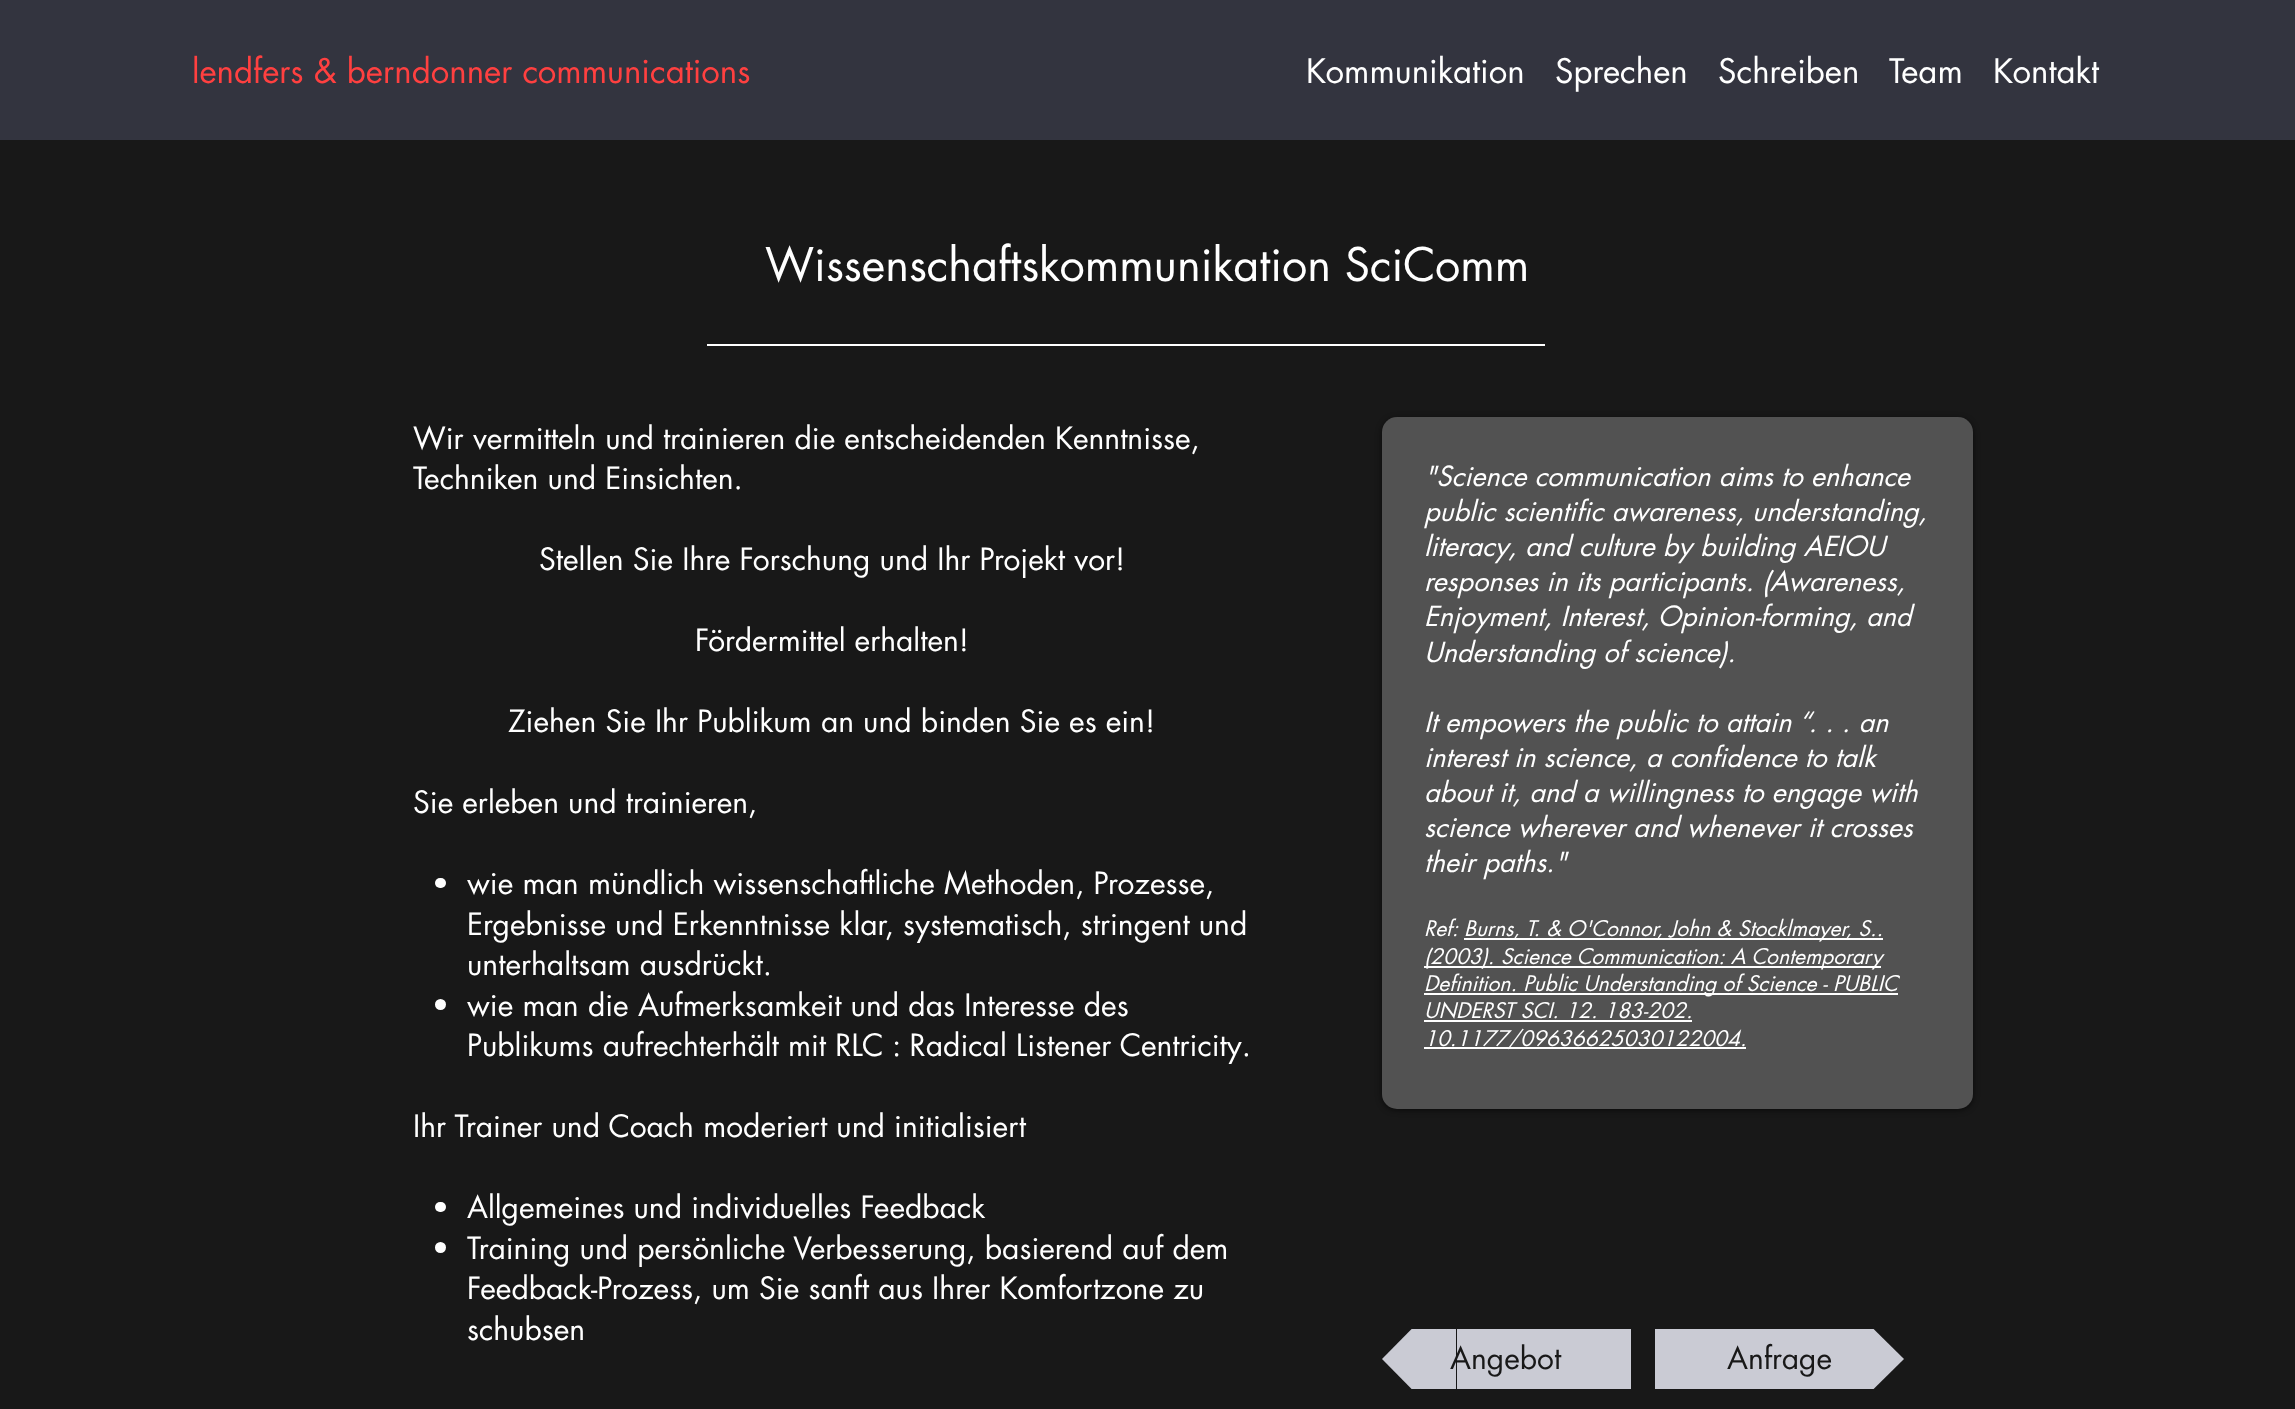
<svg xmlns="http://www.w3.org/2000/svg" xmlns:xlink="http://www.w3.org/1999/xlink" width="2295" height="1409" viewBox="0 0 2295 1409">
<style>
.cls-1{font:33px futura;fill:#ff4040}
.cls-2{font:33px futura;fill:#ffffff}
.cls-3{font:45px futura;fill:#ffffff}
.cls-4{font:30px futura;fill:#ffffff}
.cls-5{font:italic 27px futura;fill:#ffffff}
.cls-6{font:italic 21px futura;fill:#ffffff}
.cls-7{font:30px futura;fill:#181818}
</style>
<defs>
<clipPath id="clip1"><rect x="1382" y="1329" width="249" height="60"/></clipPath>
<clipPath id="clip2"><rect x="1655" y="1329" width="249" height="60"/></clipPath>
</defs>
<rect width="100%" height="100%" fill="#181818"/>
<rect fill="#33343f" x="0" y="0" width="2295" height="140"/>
<rect fill="#ffffff" x="707" y="344" width="838" height="2"/>
<rect fill="#ffffff" x="435" y="878" width="11" height="10" rx="5"/>
<circle fill="#ffffff" cx="440.5" cy="1004.5" r="5.5"/>
<rect fill="#ffffff" x="435" y="1202" width="11" height="10" rx="5"/>
<circle fill="#ffffff" cx="440.5" cy="1247.5" r="5.5"/>
<rect fill="#000000" fill-opacity="0.6" filter="blur(3px)" x="1382" y="419" width="591" height="691" rx="15"/>
<rect fill="#525252" x="1382" y="417" width="591" height="692" rx="15"/>
<rect fill="#ffffff" x="1464" y="938" width="419" height="2"/>
<rect fill="#ffffff" x="1424" y="966" width="457" height="2"/>
<rect fill="#ffffff" x="1424" y="993" width="474" height="2"/>
<rect fill="#ffffff" x="1424" y="1020" width="268" height="2"/>
<rect fill="#ffffff" x="1424" y="1047" width="322" height="2"/>
<g clip-path="url(#clip1)">
<path fill="#cacbd4" d="M1456 1359H1382L1456 1284Z"/>
</g>
<rect fill="#cacbd4" x="1457" y="1329" width="174" height="60"/>
<g clip-path="url(#clip1)">
<path fill="#cacbd4" d="M1382 1359H1456V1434Z"/>
</g>
<rect fill="#cacbd4" x="1655" y="1329" width="173" height="60"/>
<g clip-path="url(#clip2)">
<path fill="#cacbd4" d="M1904 1359H1828V1284Z"/>
<path fill="#cacbd4" d="M1828 1359H1904L1828 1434Z"/>
</g>
<text class="cls-1" x="192" y="83">lendfers &amp; berndonner communications</text>
<text class="cls-2" x="1306" y="83">Kommunikation</text>
<text class="cls-2" x="1555" y="83">Sprechen</text>
<text class="cls-2" x="1718" y="83">Schreiben</text>
<text class="cls-2" x="1889" y="83">Team</text>
<text class="cls-2" x="1993" y="83">Kontakt</text>
<text class="cls-3" x="765" y="281">Wissenschaftskommunikation SciComm</text>
<text class="cls-4"><tspan x="413" y="449">Wir vermitteln und trainieren die entscheidenden Kenntnisse,</tspan><tspan x="413" y="489">Techniken und Einsichten.</tspan></text>
<text class="cls-4" x="539" y="570">Stellen Sie Ihre Forschung und Ihr Projekt vor!</text>
<text class="cls-4" x="695" y="651">Fördermittel erhalten!</text>
<text class="cls-4" x="508" y="732">Ziehen Sie Ihr Publikum an und binden Sie es ein!</text>
<text class="cls-4" x="413" y="813">Sie erleben und trainieren,</text>
<text class="cls-4"><tspan x="467" y="894">wie man mündlich wissenschaftliche Methoden, Prozesse,</tspan><tspan x="467" y="935">Ergebnisse und Erkenntnisse klar, systematisch, stringent und</tspan><tspan x="467" y="975">unterhaltsam ausdrückt.</tspan><tspan x="467" y="1016">wie man die Aufmerksamkeit und das Interesse des</tspan><tspan x="467" y="1056">Publikums aufrechterhält mit RLC : Radical Listener Centricity.</tspan></text>
<text class="cls-4" x="413" y="1137">Ihr Trainer und Coach moderiert und initialisiert</text>
<text class="cls-4"><tspan x="467" y="1218">Allgemeines und individuelles Feedback</tspan><tspan x="467" y="1259">Training und persönliche Verbesserung, basierend auf dem</tspan><tspan x="467" y="1299">Feedback-Prozess, um Sie sanft aus Ihrer Komfortzone zu</tspan><tspan x="467" y="1340">schubsen</tspan></text>
<text class="cls-5"><tspan x="1424" y="486">"Science communication aims to enhance</tspan><tspan x="1424" y="521">public scientific awareness, understanding,</tspan><tspan x="1424" y="556">literacy, and culture by building AEIOU</tspan><tspan x="1424" y="591">responses in its participants. (Awareness,</tspan><tspan x="1424" y="626">Enjoyment, Interest, Opinion-forming, and</tspan><tspan x="1424" y="662">Understanding of science).</tspan></text>
<text class="cls-5"><tspan x="1424" y="732">It empowers the public to attain “. . . an</tspan><tspan x="1424" y="767">interest in science, a confidence to talk</tspan><tspan x="1424" y="802">about it, and a willingness to engage with</tspan><tspan x="1424" y="837">science wherever and whenever it crosses</tspan><tspan x="1424" y="872">their paths."</tspan></text>
<text class="cls-6" x="1424" y="936">Ref:</text>
<text class="cls-6" x="1464" y="936">Burns, T. &amp; O'Connor, John &amp; Stocklmayer, S..</text>
<text class="cls-6"><tspan x="1424" y="964">(2003). Science Communication: A Contemporary</tspan><tspan x="1424" y="991">Definition. Public Understanding of Science - PUBLIC</tspan><tspan x="1424" y="1018">UNDERST SCI. 12. 183-202.</tspan><tspan x="1424" y="1046">10.1177/09636625030122004.</tspan></text>
<text class="cls-7" x="1450" y="1369">Angebot</text>
<text class="cls-7" x="1727" y="1369">Anfrage</text>
</svg>
